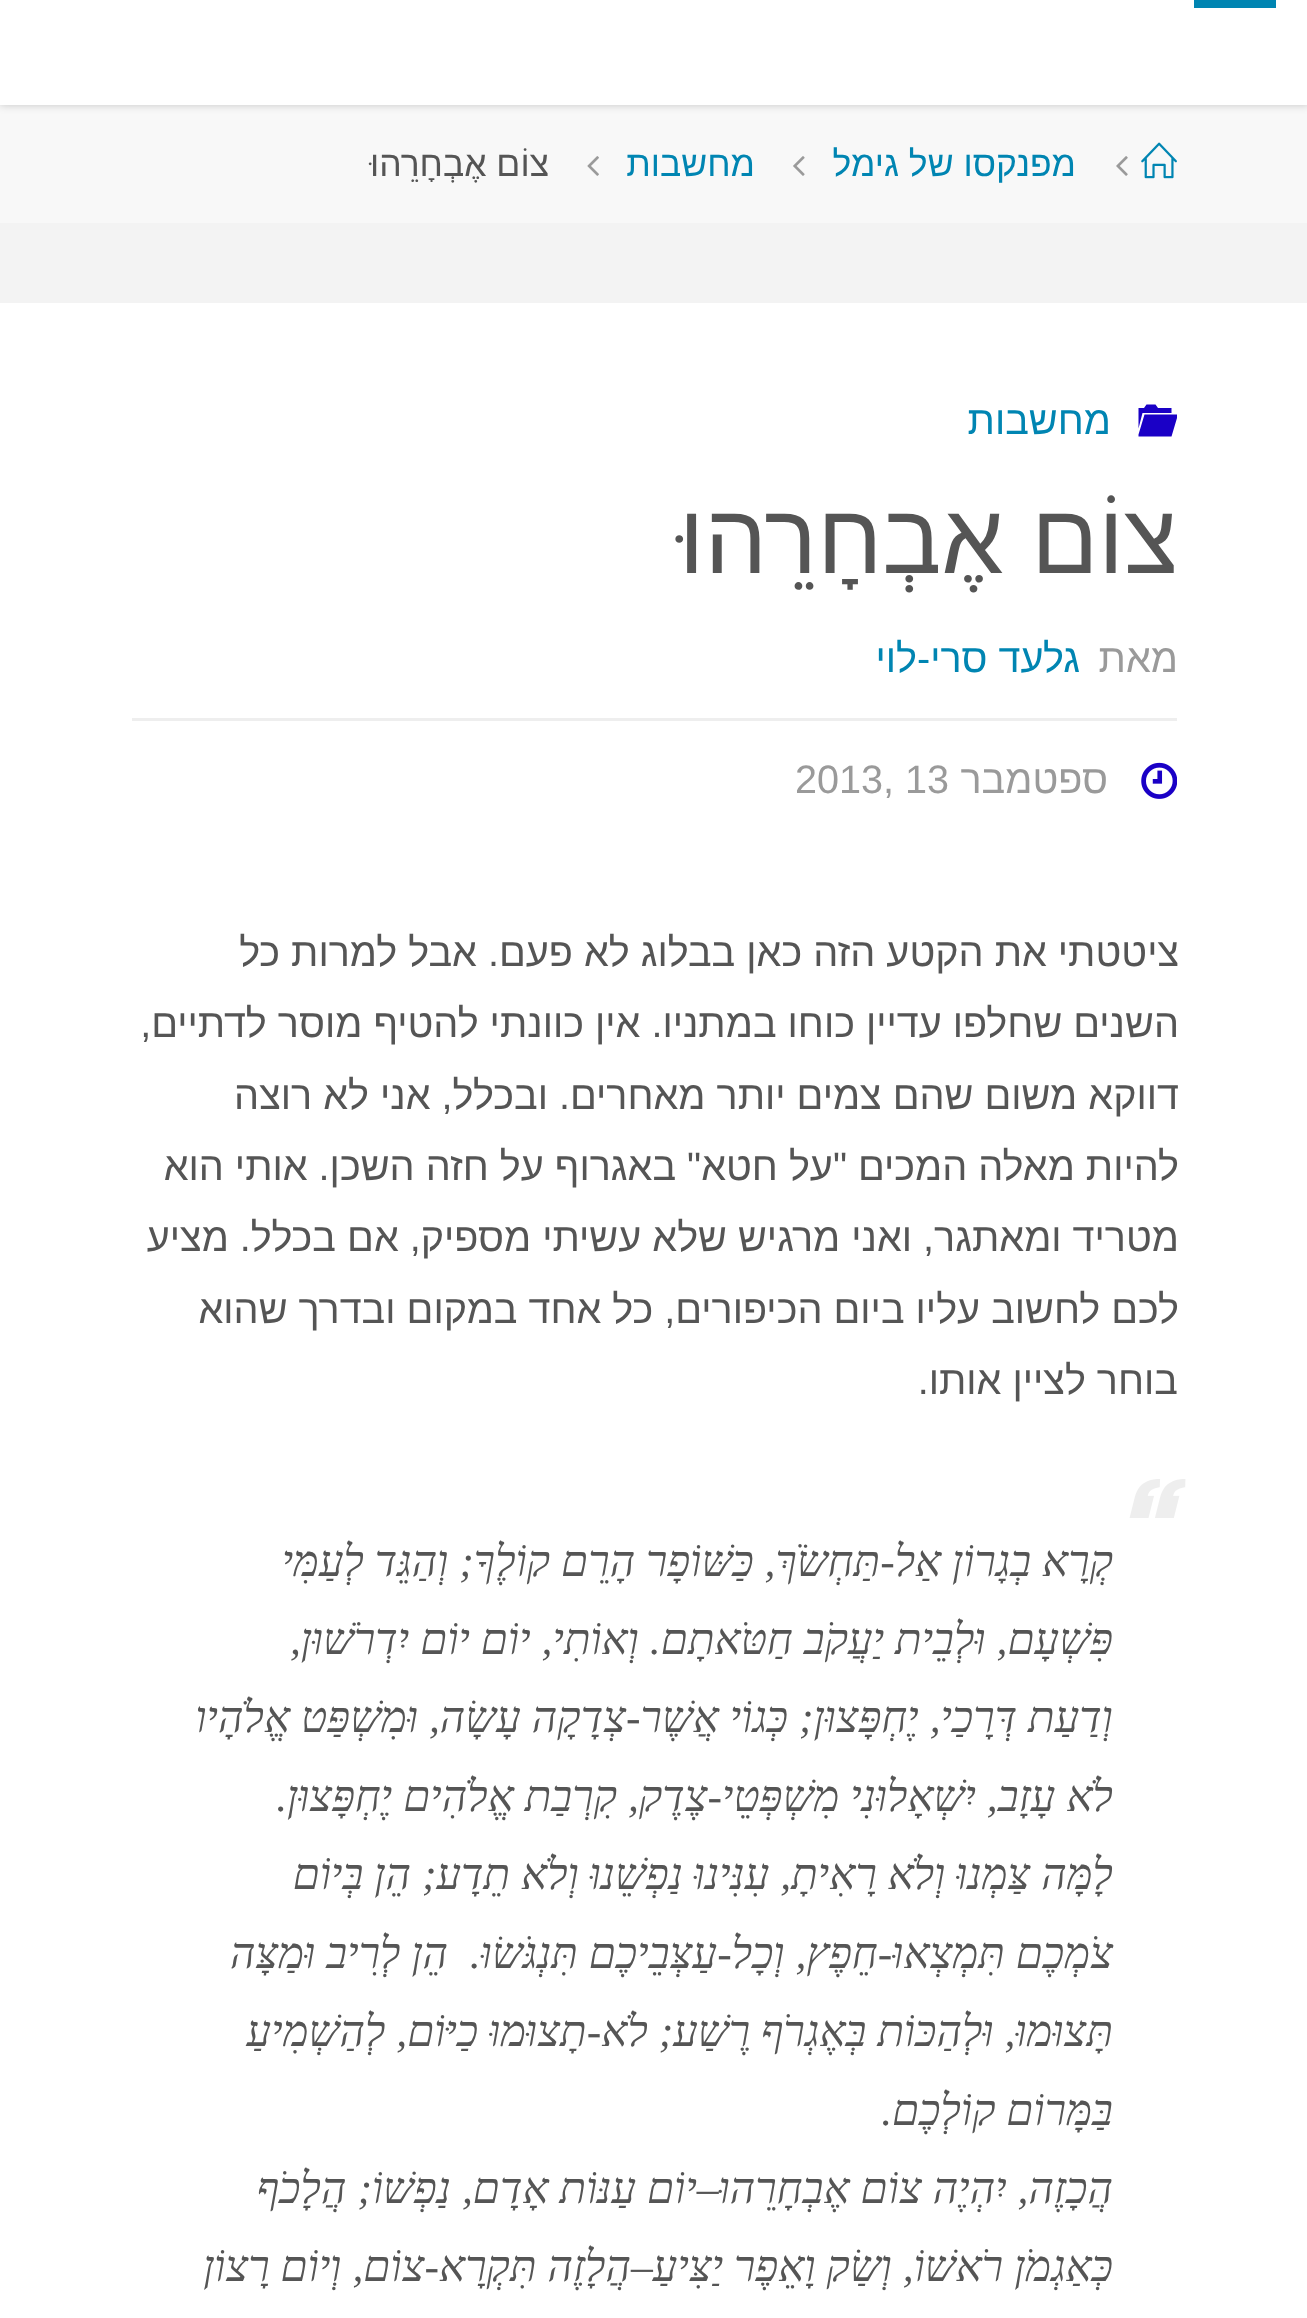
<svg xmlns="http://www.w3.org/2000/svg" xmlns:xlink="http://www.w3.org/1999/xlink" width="1307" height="2318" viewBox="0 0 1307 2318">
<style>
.cls-1{font:35.5px Liberation Sans;direction:rtl;fill:#0085b2}
.cls-2{font:35.5px Liberation Sans;direction:rtl;fill:#555555}
.cls-3{font:39.6px Liberation Sans;direction:rtl;fill:#0085b2}
.cls-4{font:99px Liberation Sans;direction:rtl;fill:#555555}
.cls-5{font:39.6px Liberation Sans;direction:rtl;fill:#9a9a9a}
.cls-6{font:39.6px Liberation Sans;fill:#9a9a9a}
.cls-7{font:39.6px Liberation Sans;direction:rtl;fill:#555555}
.cls-8{font:italic 43.6px Liberation Serif;direction:rtl;fill:#555555}
</style>
<defs>
<clipPath id="clip1"><rect x="132" y="382" width="1045" height="80"/></clipPath>
</defs>
<rect width="100%" height="100%" fill="#f3f3f3"/>
<rect fill="#f8f8f8" x="0" y="105" width="1307" height="118"/>
<rect fill="#000000" fill-opacity="0.2" filter="blur(4px)" x="0" y="-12" width="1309" height="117"/>
<rect fill="#ffffff" x="0" y="0" width="1307" height="105"/>
<rect fill="#0085b2" x="1194" y="0" width="82" height="8"/>
<image xlink:href="image0.png" x="1141" y="142" width="36" height="37"/>
<image xlink:href="image1.png" x="1116" y="156" width="12" height="20"/>
<image xlink:href="image2.png" x="793" y="156" width="12" height="20"/>
<image xlink:href="image3.png" x="587" y="156" width="12" height="20"/>
<rect fill="#ffffff" x="0" y="303" width="1307" height="2015"/>
<g clip-path="url(#clip1)">
<path fill="#1a00c6" d="M1138.5 436.5V434.5L1144.5 414.5H1178L1171.5 436.5ZM1138.5 428.5V408H1144L1146.5 404.5H1155.5L1158 408H1171.5V413H1142.5Z"/>
</g>
<rect fill="#eeeeee" x="132" y="718" width="1045" height="3"/>
<image xlink:href="image4.png" x="1141" y="762" width="36" height="37"/>
<image xlink:href="image5.png" x="1129" y="1479" width="57" height="39"/>
<text class="cls-1" x="1076" y="176">מפנקסו של גימל</text>
<text class="cls-1" x="755" y="176">מחשבות</text>
<text class="cls-2" x="549" y="176">צוֹם אֶבְחָרֵהוּ</text>
<text class="cls-3" x="1111" y="434">מחשבות</text>
<text class="cls-4" x="1178" y="573">צוֹם אֶבְחָרֵהוּ</text>
<text class="cls-5" x="1178" y="672">מאת</text>
<text class="cls-3" x="1080" y="672">גלעד סרי-לוי</text>
<text class="cls-5" x="1108" y="793">ספטמבר</text>
<text class="cls-6" x="795" y="793">2013, 13</text>
<text class="cls-7"><tspan x="1179" y="966">ציטטתי את הקטע הזה כאן בבלוג לא פעם. אבל למרות כל</tspan><tspan x="1179" y="1037">השנים שחלפו עדיין כוחו במתניו. אין כוונתי להטיף מוסר לדתיים,</tspan><tspan x="1179" y="1109">דווקא משום שהם צמים יותר מאחרים. ובכלל, אני לא רוצה</tspan><tspan x="1179" y="1180">להיות מאלה המכים "על חטא" באגרוף על חזה השכן. אותי הוא</tspan><tspan x="1179" y="1251">מטריד ומאתגר, ואני מרגיש שלא עשיתי מספיק, אם בכלל. מציע</tspan><tspan x="1179" y="1323">לכם לחשוב עליו ביום הכיפורים, כל אחד במקום ובדרך שהוא</tspan></text>
<text class="cls-7" x="1178" y="1394">בוחר לציין אותו.</text>
<text class="cls-8" xml:space="preserve"><tspan x="1113" y="1576">קְרָא בְגָרוֹן אַל-תַּחְשֹׂךְ, כַּשּׁוֹפָר הָרֵם קוֹלֶךָ; וְהַגֵּד לְעַמִּי</tspan><tspan x="1113" y="1654">פִּשְׁעָם, וּלְבֵית יַעֲקֹב חַטֹּאתָם. וְאוֹתִי, יוֹם יוֹם יִדְרֹשׁוּן,</tspan><tspan x="1113" y="1732">וְדַעַת דְּרָכַי, יֶחְפָּצוּן; כְּגוֹי אֲשֶׁר-צְדָקָה עָשָׂה, וּמִשְׁפַּט אֱלֹהָיו</tspan><tspan x="1113" y="1811">לֹא עָזָב, יִשְׁאָלוּנִי מִשְׁפְּטֵי-צֶדֶק, קִרְבַת אֱלֹהִים יֶחְפָּצוּן.</tspan><tspan x="1113" y="1889">לָמָּה צַּמְנוּ וְלֹא רָאִיתָ, עִנִּינוּ נַפְשֵׁנוּ וְלֹא תֵדָע; הֵן בְּיוֹם</tspan><tspan x="1113" y="1968">צֹמְכֶם תִּמְצְאוּ-חֵפֶץ, וְכָל-עַצְּבֵיכֶם תִּנְגֹּשׂוּ.  הֵן לְרִיב וּמַצָּה</tspan><tspan x="1113" y="2046">תָּצוּמוּ, וּלְהַכּוֹת בְּאֶגְרֹף רֶשַׁע; לֹא-תָצוּמוּ כַיּוֹם, לְהַשְׁמִיעַ</tspan><tspan x="1113" y="2125">בַּמָּרוֹם קוֹלְכֶם.</tspan><tspan x="1113" y="2203">הֲכָזֶה, יִהְיֶה צוֹם אֶבְחָרֵהוּ–יוֹם עַנּוֹת אָדָם, נַפְשׁוֹ; הֲלָכֹף</tspan><tspan x="1113" y="2281">כְּאַגְמֹן רֹאשׁוֹ, וְשַׂק וָאֵפֶר יַצִּיעַ–הֲלָזֶה תִּקְרָא-צוֹם, וְיוֹם רָצוֹן</tspan></text>
</svg>
